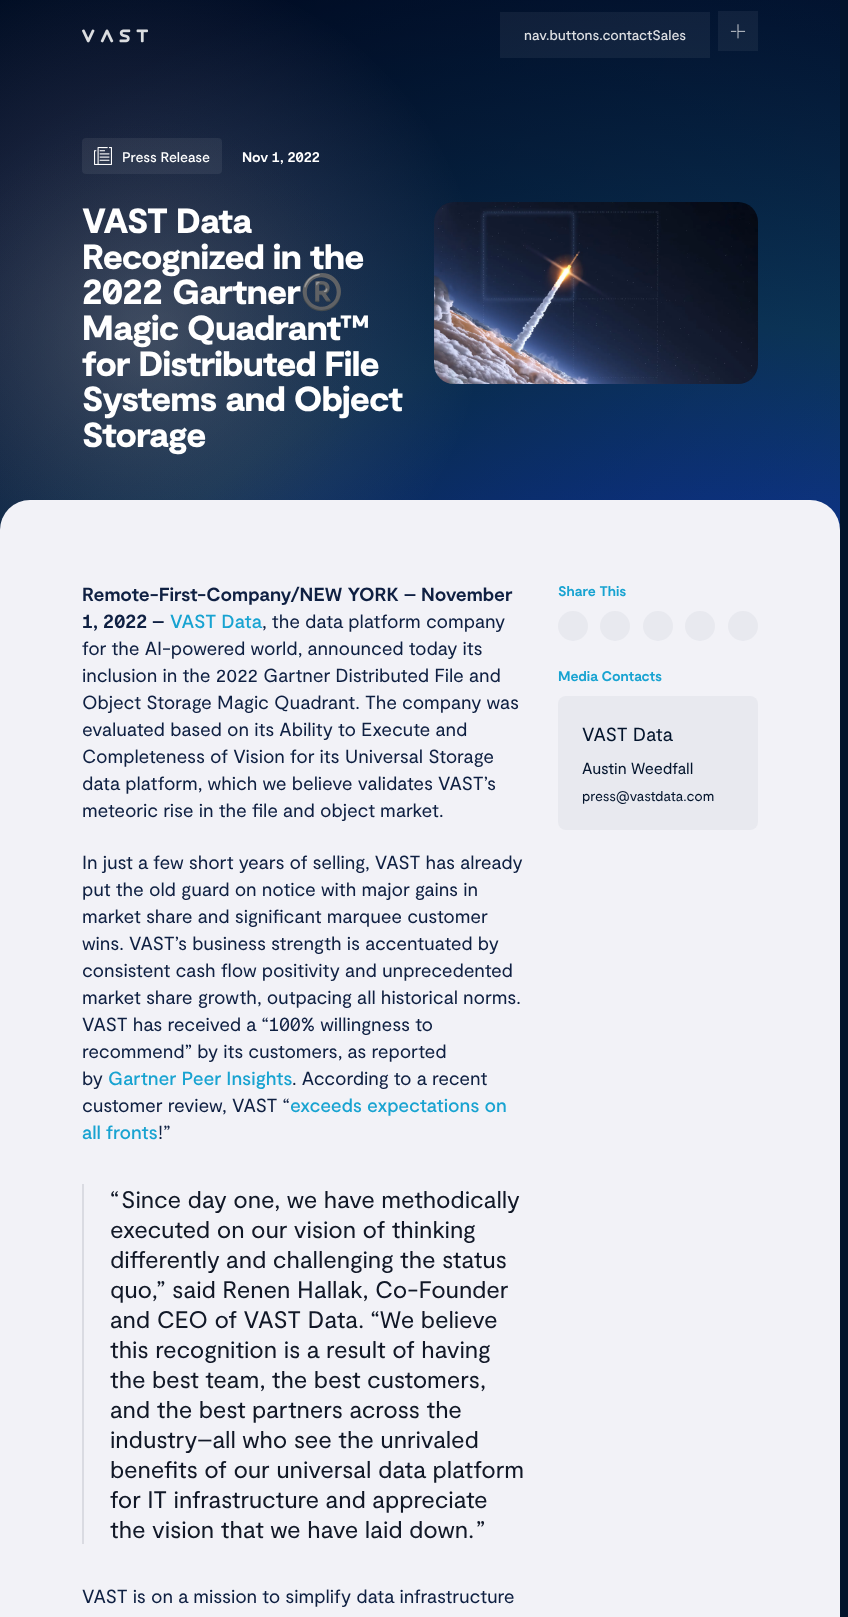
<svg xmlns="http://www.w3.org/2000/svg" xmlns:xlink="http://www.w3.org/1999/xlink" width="848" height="1617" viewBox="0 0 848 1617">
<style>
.cls-1{font:500 14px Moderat;fill:#dddfe3}
.cls-2{font:500 14px Moderat;fill:#ffffff}
.cls-3{font:bold 14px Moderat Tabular;fill:#ffffff}
.cls-4{font:900 35px Moderat;letter-spacing:-0.7px;fill:#ffffff}
.cls-5{font:900 35px Moderat Tabular;letter-spacing:-0.7px;fill:#ffffff}
.cls-6{font:bold 35px Noto Color Emoji;letter-spacing:-0.7px;fill:#ffffff}
.cls-7{font:bold 19px Moderat;fill:#0f2042}
.cls-8{font:bold 19px Moderat Tabular;fill:#0f2042}
.cls-9{font:500 19px Moderat;fill:#18a3d1}
.cls-10{font:19px Moderat;fill:#0f2042}
.cls-11{font:19px Moderat Tabular;fill:#0f2042}
.cls-12{font:24px Moderat;fill:#111827}
.cls-13{font:bold 14px Moderat;fill:#18a3d1}
.cls-14{font:19px Moderat;fill:#03142c}
.cls-15{font:16px Moderat;fill:#03142c}
.cls-16{font:14px Moderat;fill:#03142c}
</style>
<rect width="100%" height="100%" fill="#03142c"/>
<image xlink:href="image2.png" x="0" y="0" width="840" height="530"/>
<image xlink:href="image0.png" x="82" y="29" width="66" height="14"/>
<rect fill="#ffffff" fill-opacity="0.06" x="500" y="12" width="210" height="46"/>
<rect fill="#ffffff" fill-opacity="0.06" x="718" y="11" width="40" height="40"/>
<image xlink:href="image1.png" x="730" y="24" width="16" height="15"/>
<rect fill="#ffffff" fill-opacity="0.07" x="82" y="138" width="140" height="36" rx="4"/>
<image xlink:href="image3.png" x="94" y="147" width="18" height="18"/>
<image xlink:href="image4.png" x="434" y="202" width="324" height="182"/>
<rect fill="#f2f2f7" x="0" y="500" width="840" height="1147" rx="30"/>
<rect fill="#dadbe2" x="82" y="1184" width="2" height="360"/>
<circle fill="#e8e9ef" cx="573" cy="626" r="15"/>
<circle fill="#e8e9ef" cx="615" cy="626" r="15"/>
<circle fill="#e8e9ef" cx="658" cy="626" r="15"/>
<circle fill="#e8e9ef" cx="700" cy="626" r="15"/>
<circle fill="#e8e9ef" cx="743" cy="626" r="15"/>
<rect fill="#e8e9ef" x="558" y="696" width="200" height="134" rx="8"/>
<text class="cls-1" x="524" y="40">nav.buttons.contactSales</text>
<text class="cls-2" x="122" y="162">Press Release</text>
<text class="cls-3" x="242" y="162">Nov 1, 2022</text>
<text class="cls-4"><tspan x="82" y="233">VAST Data</tspan><tspan x="82" y="269">Recognized in the</tspan></text>
<text class="cls-5" x="82" y="304" word-spacing="1">2022 Gartner</text>
<text class="cls-6" x="300" y="304">®️</text>
<text class="cls-4"><tspan x="82" y="340">Magic Quadrant™</tspan><tspan x="82" y="376">for Distributed File</tspan><tspan x="82" y="411">Systems and Object</tspan><tspan x="82" y="447">Storage</tspan></text>
<text class="cls-7" x="82" y="601">Remote-First-Company/NEW YORK – November</text>
<text class="cls-8" x="82" y="628">1, 2022 –</text>
<text class="cls-9" x="170" y="628">VAST Data</text>
<text class="cls-10" x="262" y="628">, the data platform company</text>
<text class="cls-10"><tspan x="82" y="655">for the AI-powered world, announced today its</tspan><tspan x="82" y="682">inclusion in the 2022 Gartner Distributed File and</tspan><tspan x="82" y="709">Object Storage Magic Quadrant. The company was</tspan><tspan x="82" y="736">evaluated based on its Ability to Execute and</tspan><tspan x="82" y="763">Completeness of Vision for its Universal Storage</tspan><tspan x="82" y="790">data platform, which we believe validates VAST’s</tspan><tspan x="82" y="817">meteoric rise in the file and object market.</tspan></text>
<text class="cls-10"><tspan x="82" y="869">In just a few short years of selling, VAST has already</tspan><tspan x="82" y="896">put the old guard on notice with major gains in</tspan><tspan x="82" y="923">market share and significant marquee customer</tspan><tspan x="82" y="950">wins. VAST’s business strength is accentuated by</tspan><tspan x="82" y="977">consistent cash flow positivity and unprecedented</tspan><tspan x="82" y="1004">market share growth, outpacing all historical norms.</tspan></text>
<text class="cls-11" x="82" y="1031">VAST has received a “100% willingness to</text>
<text class="cls-10"><tspan x="82" y="1058">recommend” by its customers, as reported</tspan><tspan x="82" y="1085">by</tspan></text>
<text class="cls-9" x="108" y="1085">Gartner Peer Insights</text>
<text class="cls-10" x="292" y="1085">. According to a recent</text>
<text class="cls-10" x="82" y="1112">customer review, VAST “</text>
<text class="cls-9" x="290" y="1112">exceeds expectations on</text>
<text class="cls-9" x="82" y="1139">all fronts</text>
<text class="cls-10" x="158" y="1139">!”</text>
<text class="cls-12" x="110" y="1208">“</text>
<text class="cls-12" x="121" y="1208">Since day one, we have methodically</text>
<text class="cls-12"><tspan x="110" y="1238">executed on our vision of thinking</tspan><tspan x="110" y="1268">differently and challenging the status</tspan><tspan x="110" y="1298">quo,” said Renen Hallak, Co-Founder</tspan><tspan x="110" y="1328">and CEO of VAST Data. “We believe</tspan><tspan x="110" y="1358">this recognition is a result of having</tspan><tspan x="110" y="1388">the best team, the best customers,</tspan><tspan x="110" y="1418">and the best partners across the</tspan><tspan x="110" y="1448">industry–all who see the unrivaled</tspan><tspan x="110" y="1478">benefits of our universal data platform</tspan><tspan x="110" y="1508">for IT infrastructure and appreciate</tspan><tspan x="110" y="1538">the vision that we have laid down.</tspan></text>
<text class="cls-12" x="476" y="1538">”</text>
<text class="cls-10" x="82" y="1603">VAST is on a mission to simplify data infrastructure</text>
<text class="cls-13" x="558" y="596">Share This</text>
<text class="cls-13" x="558" y="681">Media Contacts</text>
<text class="cls-14" x="582" y="741">VAST Data</text>
<text class="cls-15" x="582" y="774">Austin Weedfall</text>
<text class="cls-16" x="582" y="801">press@vastdata.com</text>
</svg>
